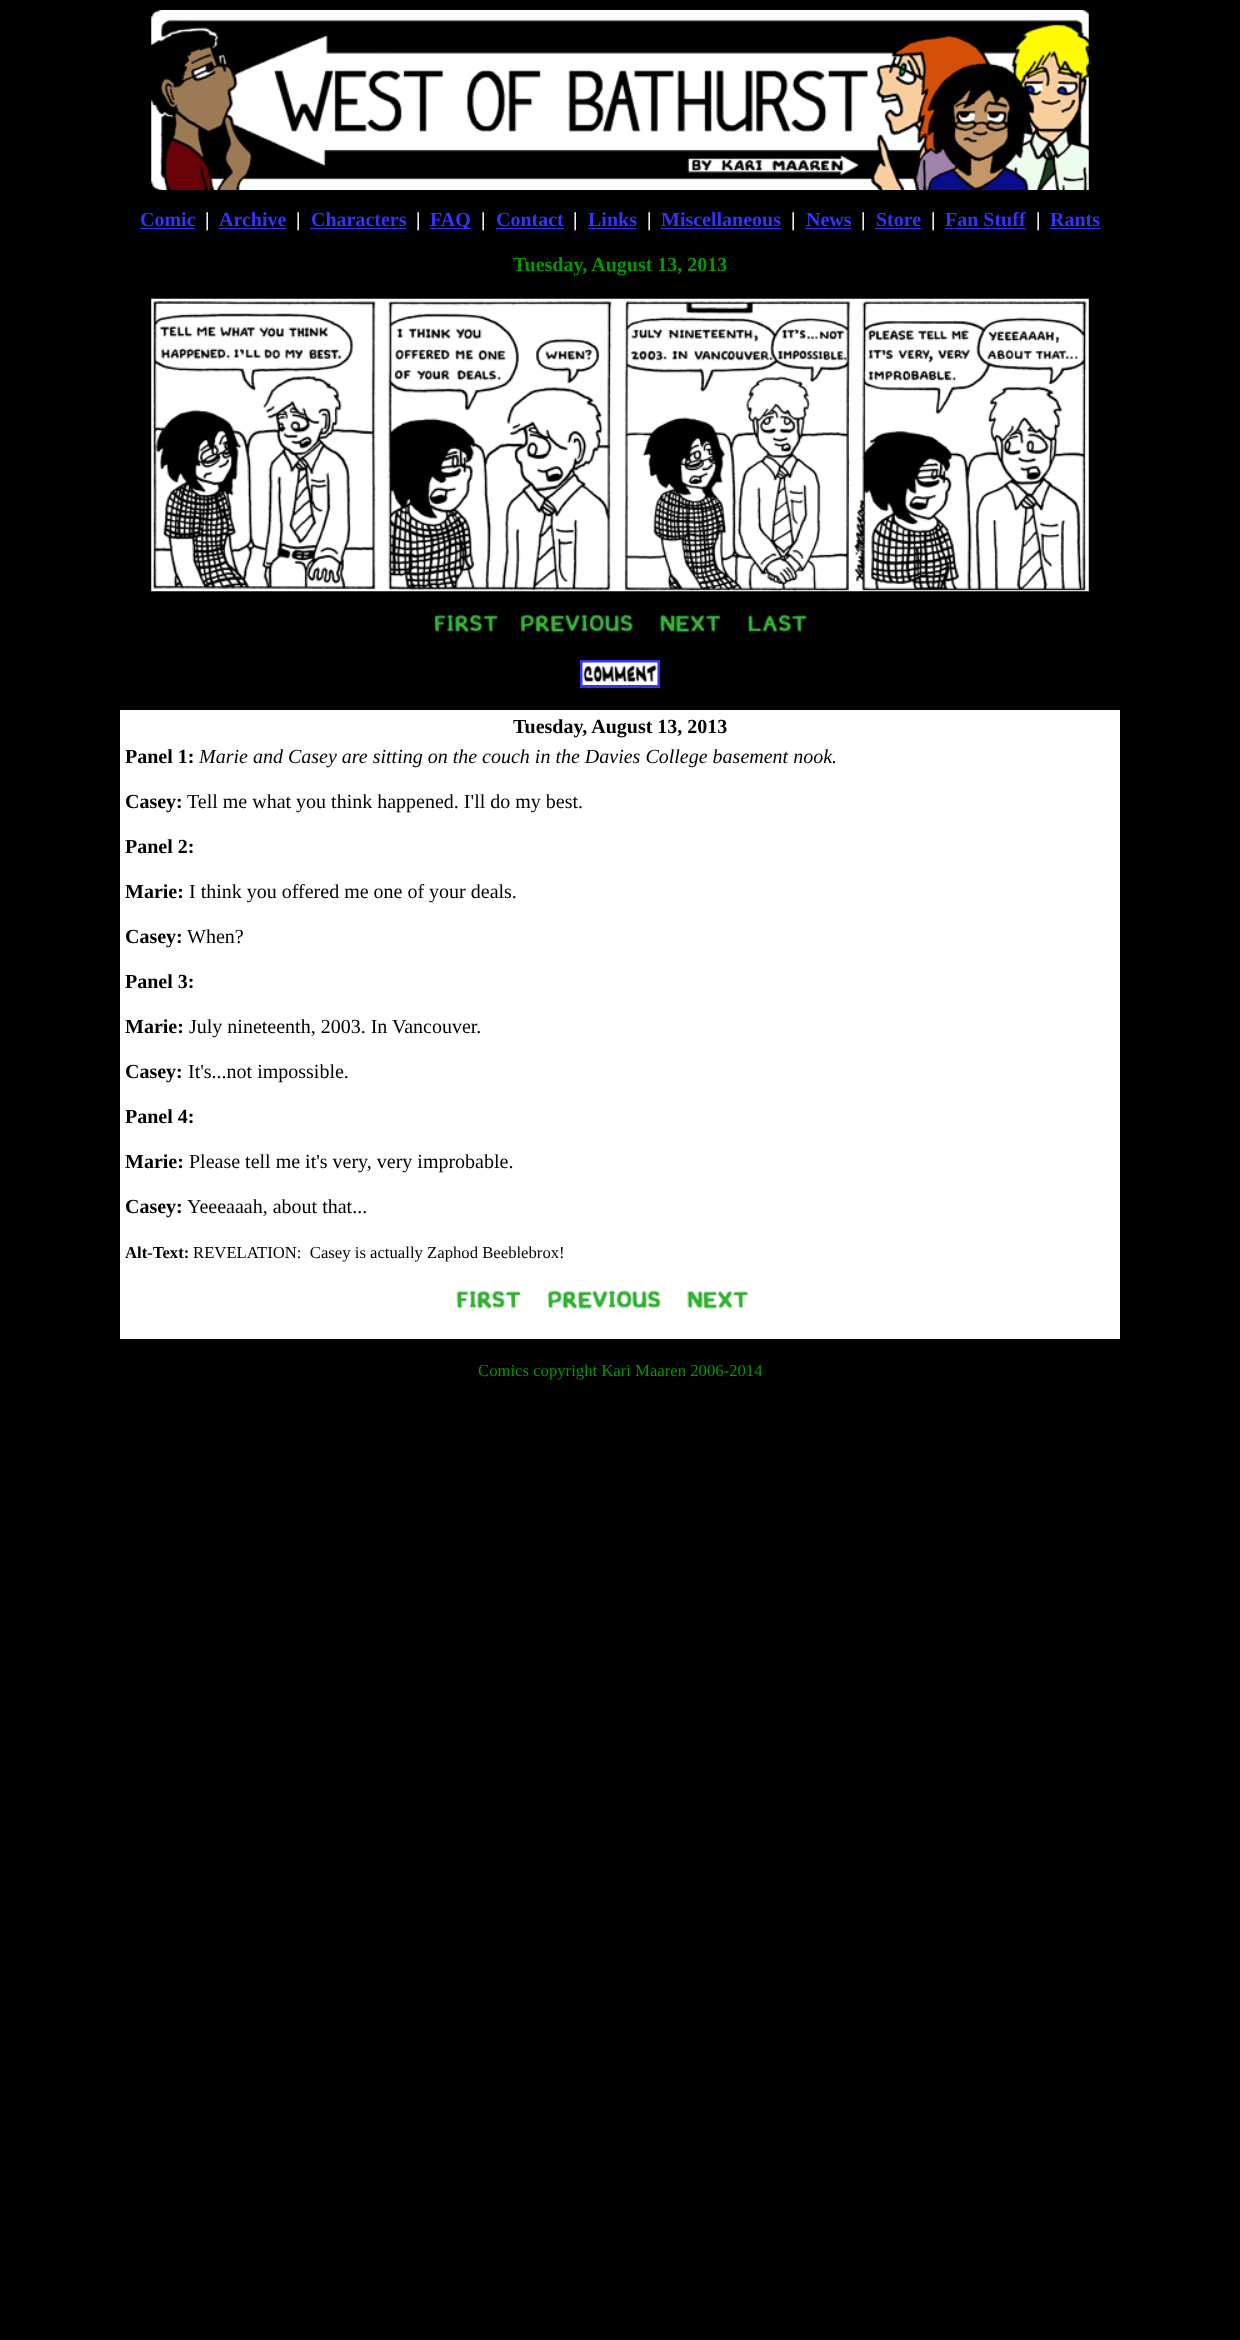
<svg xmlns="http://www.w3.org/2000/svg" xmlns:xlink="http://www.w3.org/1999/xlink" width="1240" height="2340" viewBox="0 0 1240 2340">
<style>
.cls-1{font:bold 20px Liberation Serif;fill:#3333ff}
.cls-2{font:bold 20px Liberation Serif;fill:#ffffff}
.cls-3{font:bold 20px Liberation Serif;fill:#009900}
.cls-4{font:bold 20px Liberation Serif;fill:#000000}
.cls-5{font:italic 20px Liberation Serif;fill:#000000}
.cls-6{font:20px Liberation Serif;fill:#000000}
.cls-7{font:bold 16.7px Liberation Serif;fill:#000000}
.cls-8{font:16.7px Liberation Serif;fill:#000000}
.cls-9{font:16.7px Liberation Serif;fill:#009900}
</style>
<rect width="100%" height="100%" fill="#000000"/>
<image xlink:href="image0.png" x="151" y="10" width="938" height="180"/>
<rect fill="#3333ff" x="140" y="228" width="55" height="1"/>
<rect fill="#3333ff" x="219" y="228" width="67" height="1"/>
<rect fill="#3333ff" x="310" y="228" width="96" height="1"/>
<rect fill="#3333ff" x="430" y="228" width="41" height="1"/>
<rect fill="#3333ff" x="496" y="228" width="68" height="1"/>
<rect fill="#3333ff" x="588" y="228" width="48" height="1"/>
<rect fill="#3333ff" x="661" y="228" width="120" height="1"/>
<rect fill="#3333ff" x="805" y="228" width="46" height="1"/>
<rect fill="#3333ff" x="875" y="228" width="46" height="1"/>
<rect fill="#3333ff" x="945" y="228" width="81" height="1"/>
<rect fill="#3333ff" x="1050" y="228" width="50" height="1"/>
<image xlink:href="image1.png" x="151" y="298" width="938" height="294"/>
<image xlink:href="image2.png" x="434" y="614" width="64" height="19"/>
<image xlink:href="image3.png" x="520" y="614" width="113" height="19"/>
<image xlink:href="image4.png" x="660" y="614" width="61" height="19"/>
<image xlink:href="image5.png" x="747" y="614" width="60" height="19"/>
<rect fill="none" stroke="#3333ff" stroke-width="3" x="581.5" y="661.5" width="77" height="25"/>
<image xlink:href="image6.png" x="582" y="662" width="76" height="23"/>
<rect fill="#ffffff" x="120" y="710" width="1000" height="629"/>
<image xlink:href="image7.png" x="456" y="1290" width="65" height="19"/>
<image xlink:href="image8.png" x="547" y="1290" width="114" height="19"/>
<image xlink:href="image9.png" x="687" y="1291" width="62" height="18"/>
<text class="cls-1" x="140" y="226">Comic</text>
<text class="cls-2" x="205" y="226">|</text>
<text class="cls-1" x="219" y="226">Archive</text>
<text class="cls-2" x="296" y="226">|</text>
<text class="cls-1" x="311" y="226">Characters</text>
<text class="cls-2" x="416" y="226">|</text>
<text class="cls-1" x="430" y="226">FAQ</text>
<text class="cls-2" x="481" y="226">|</text>
<text class="cls-1" x="496" y="226">Contact</text>
<text class="cls-2" x="573" y="226">|</text>
<text class="cls-1" x="588" y="226">Links</text>
<text class="cls-2" x="647" y="226">|</text>
<text class="cls-1" x="661" y="226">Miscellaneous</text>
<text class="cls-2" x="791" y="226">|</text>
<text class="cls-1" x="806" y="226">News</text>
<text class="cls-2" x="861" y="226">|</text>
<text class="cls-1" x="876" y="226">Store</text>
<text class="cls-2" x="931" y="226">|</text>
<text class="cls-1" x="945" y="226">Fan Stuff</text>
<text class="cls-2" x="1036" y="226">|</text>
<text class="cls-1" x="1050" y="226">Rants</text>
<text class="cls-3" x="513" y="271">Tuesday, August 13, 2013</text>
<text class="cls-4" x="513" y="733">Tuesday, August 13, 2013</text>
<text class="cls-4" x="125" y="763">Panel 1:</text>
<text class="cls-5" x="199" y="763">Marie and Casey are sitting on the couch in the Davies College basement nook.</text>
<text class="cls-4" x="125" y="808">Casey:</text>
<text class="cls-6" x="187" y="808">Tell me what you think happened. I'll do my best.</text>
<text class="cls-4" x="125" y="853">Panel 2:</text>
<text class="cls-4" x="125" y="898">Marie:</text>
<text class="cls-6" x="189" y="898">I think you offered me one of your deals.</text>
<text class="cls-4" x="125" y="943">Casey:</text>
<text class="cls-6" x="187" y="943">When?</text>
<text class="cls-4" x="125" y="988">Panel 3:</text>
<text class="cls-4" x="125" y="1033">Marie:</text>
<text class="cls-6" x="189" y="1033">July nineteenth, 2003. In Vancouver.</text>
<text class="cls-4" x="125" y="1078">Casey:</text>
<text class="cls-6" x="188" y="1078">It's...not impossible.</text>
<text class="cls-4" x="125" y="1123">Panel 4:</text>
<text class="cls-4" x="125" y="1168">Marie:</text>
<text class="cls-6" x="189" y="1168">Please tell me it's very, very improbable.</text>
<text class="cls-4" x="125" y="1213">Casey:</text>
<text class="cls-6" x="187" y="1213">Yeeeaaah, about that...</text>
<text class="cls-7" x="125" y="1258">Alt-Text:</text>
<text class="cls-8" xml:space="preserve" x="193" y="1258">REVELATION:  Casey is actually Zaphod Beeblebrox!</text>
<text class="cls-9" x="478" y="1376">Comics copyright Kari Maaren 2006-2014</text>
</svg>
